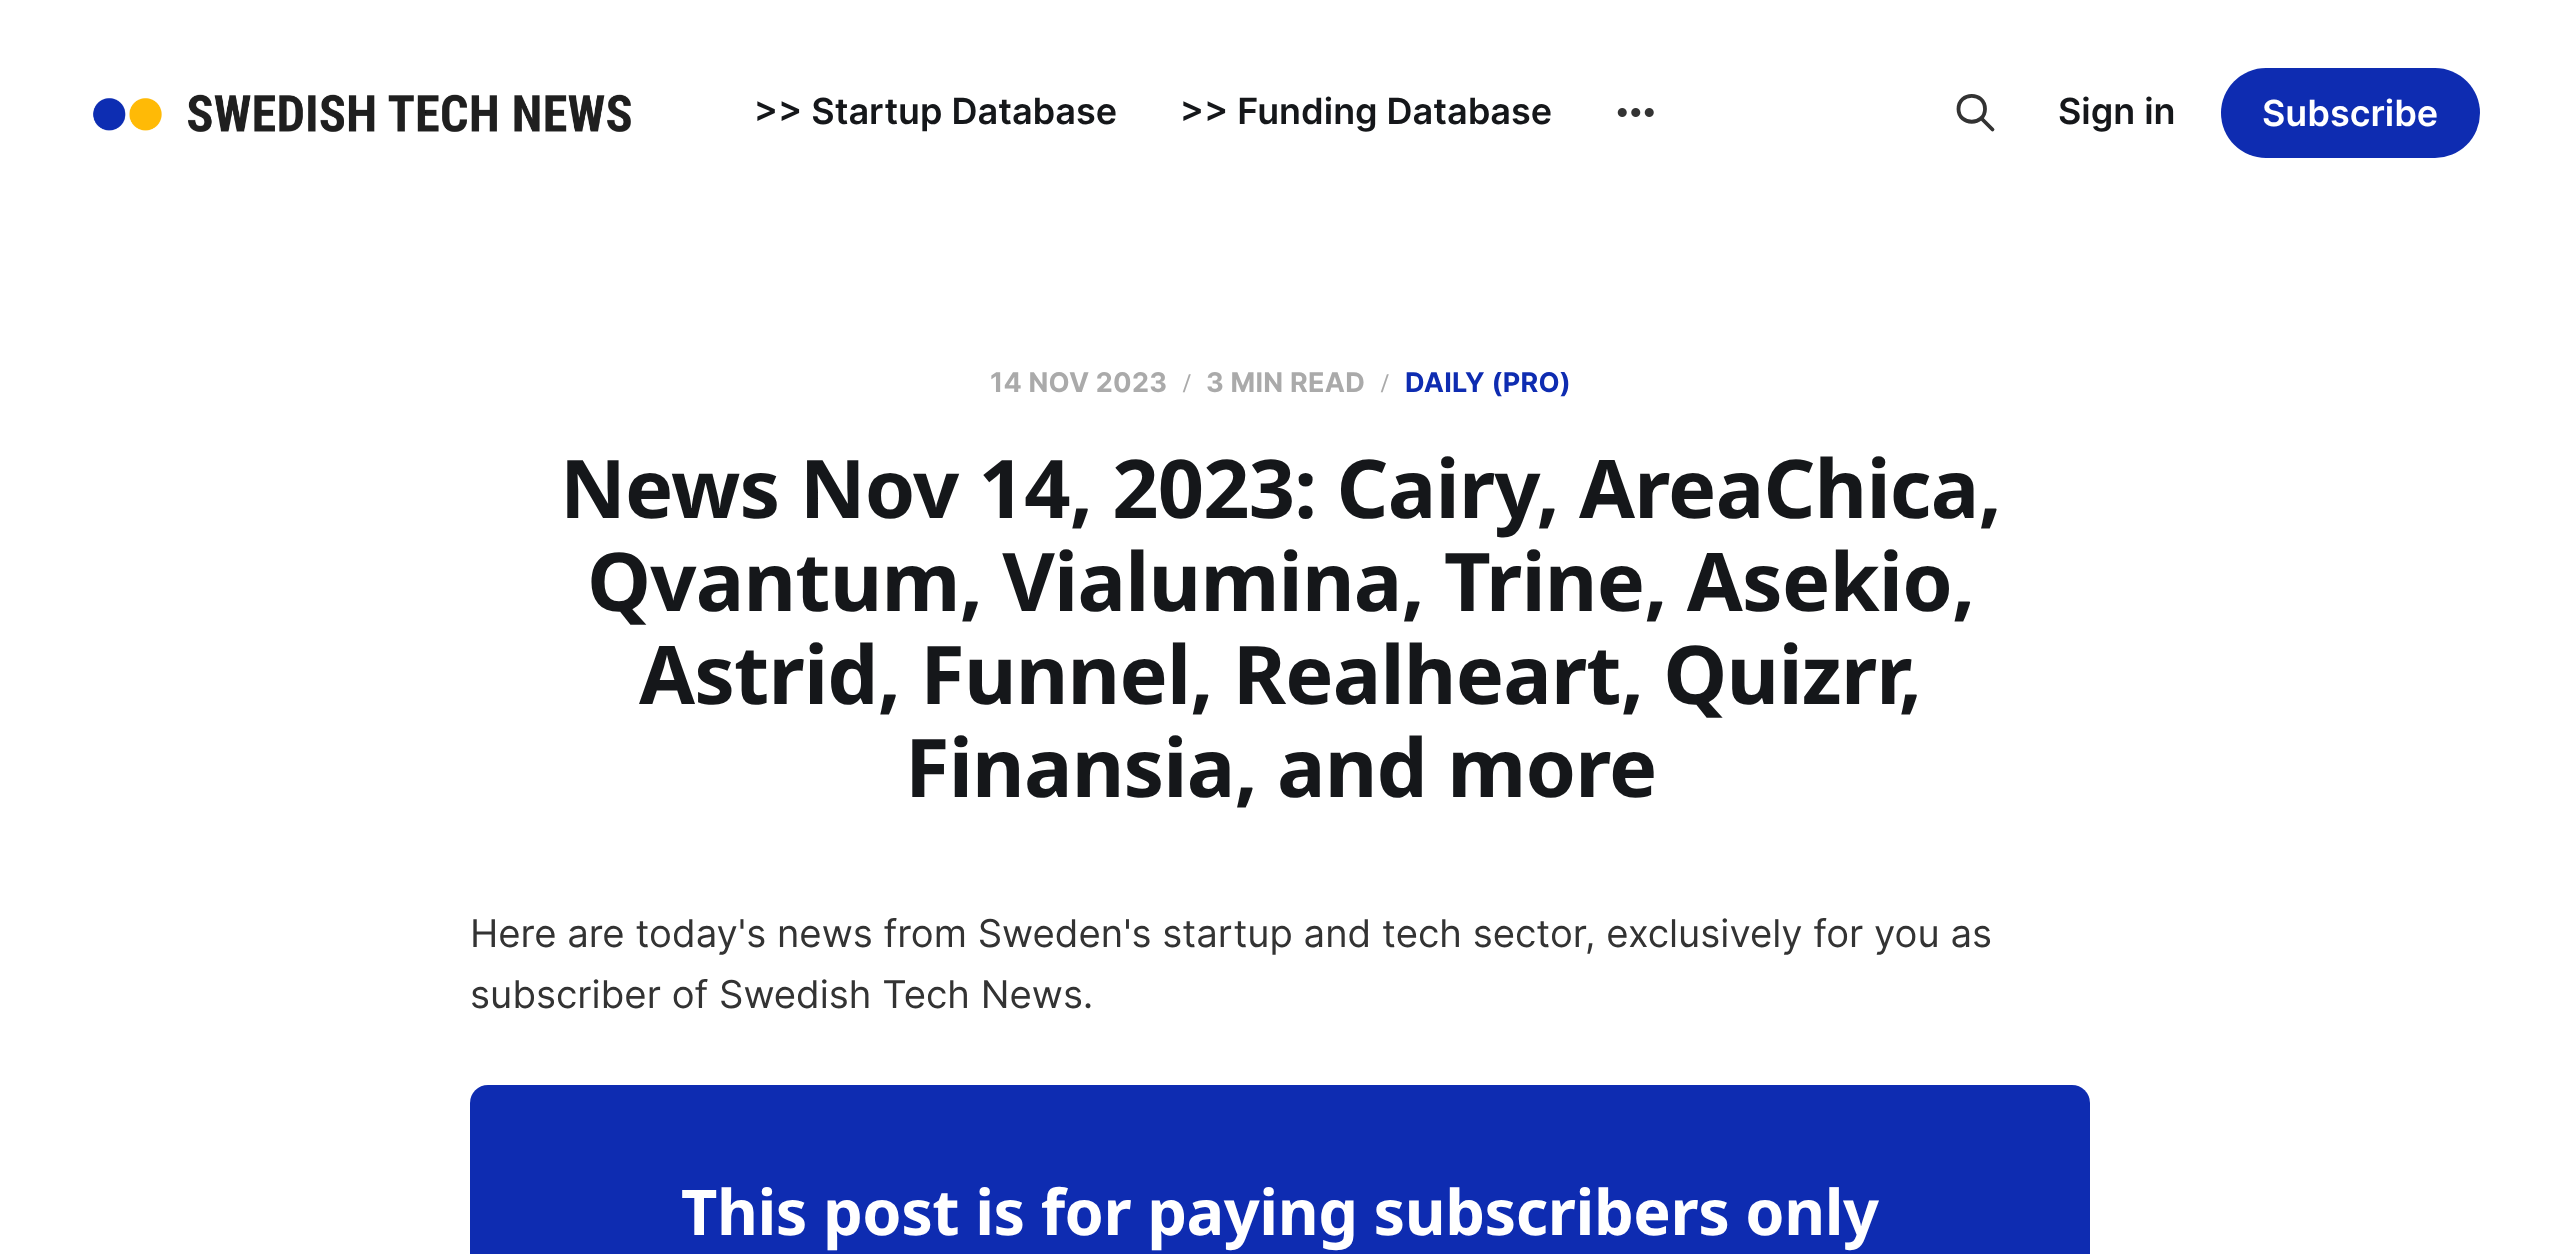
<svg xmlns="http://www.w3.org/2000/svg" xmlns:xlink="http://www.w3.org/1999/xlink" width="2560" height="1254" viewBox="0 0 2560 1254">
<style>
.cls-1{font:600 36px Inter;fill:#15171a}
.cls-2{font:600 36px Inter;fill:#ffffff}
.cls-3{font:bold 27px Inter;letter-spacing:0.25px;fill:#aaaaaa}
.cls-4{font:bold 27px Liberation Serif;letter-spacing:0.25px;fill:#aaaaaa}
.cls-5{font:bold 27px Inter;letter-spacing:0.25px;fill:#0e2cb1}
.cls-6{font:bold 81px Noto Sans;letter-spacing:-0.8px;fill:#15171a}
.cls-7{font:38.25px Inter;fill:#333333}
.cls-8{font:bold 63px Noto Sans;letter-spacing:-0.45px;fill:#ffffff}
</style>
<rect width="100%" height="100%" fill="#ffffff"/>
<image xlink:href="image0.png" x="93" y="94" width="538" height="38"/>
<image xlink:href="image1.png" x="1617" y="108" width="37" height="9"/>
<path fill="none" stroke="#333333" stroke-width="3.8" stroke-linecap="round" stroke-linejoin="round" d="M1992.5 129.5L1981 118M1985 109C1985 126 1958.5 126 1958.5 109C1958.5 91.5 1985 91.5 1985 109Z"/>
<rect fill="#0e2cb1" x="2221" y="68" width="259" height="90" rx="45"/>
<rect fill="#0e2cb1" x="470" y="1085" width="1620" height="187" rx="18"/>
<text class="cls-1" x="754" y="124">&gt;&gt; Startup Database</text>
<text class="cls-1" x="1180" y="124">&gt;&gt; Funding Database</text>
<text class="cls-1" x="2058" y="124">Sign in</text>
<text class="cls-2" x="2262" y="126">Subscribe</text>
<text class="cls-3" x="990" y="392">14 NOV 2023</text>
<text class="cls-4" x="1183" y="392">/</text>
<text class="cls-3" x="1206" y="392">3 MIN READ</text>
<text class="cls-4" x="1381" y="392">/</text>
<text class="cls-5" x="1405" y="392">DAILY (PRO)</text>
<text class="cls-6" x="560" y="518">News Nov 14, 2023: Cairy, AreaChica,</text>
<text class="cls-6" x="587" y="611">Qvantum, Vialumina, Trine, Asekio,</text>
<text class="cls-6" x="639" y="704">Astrid, Funnel, Realheart, Quizrr,</text>
<text class="cls-6" x="905" y="797">Finansia, and more</text>
<text class="cls-7"><tspan x="470" y="947">Here are today's news from Sweden's startup and tech sector, exclusively for you as</tspan><tspan x="470" y="1008">subscriber of Swedish Tech News.</tspan></text>
<text class="cls-8" x="681" y="1235">This post is for paying subscribers only</text>
</svg>
